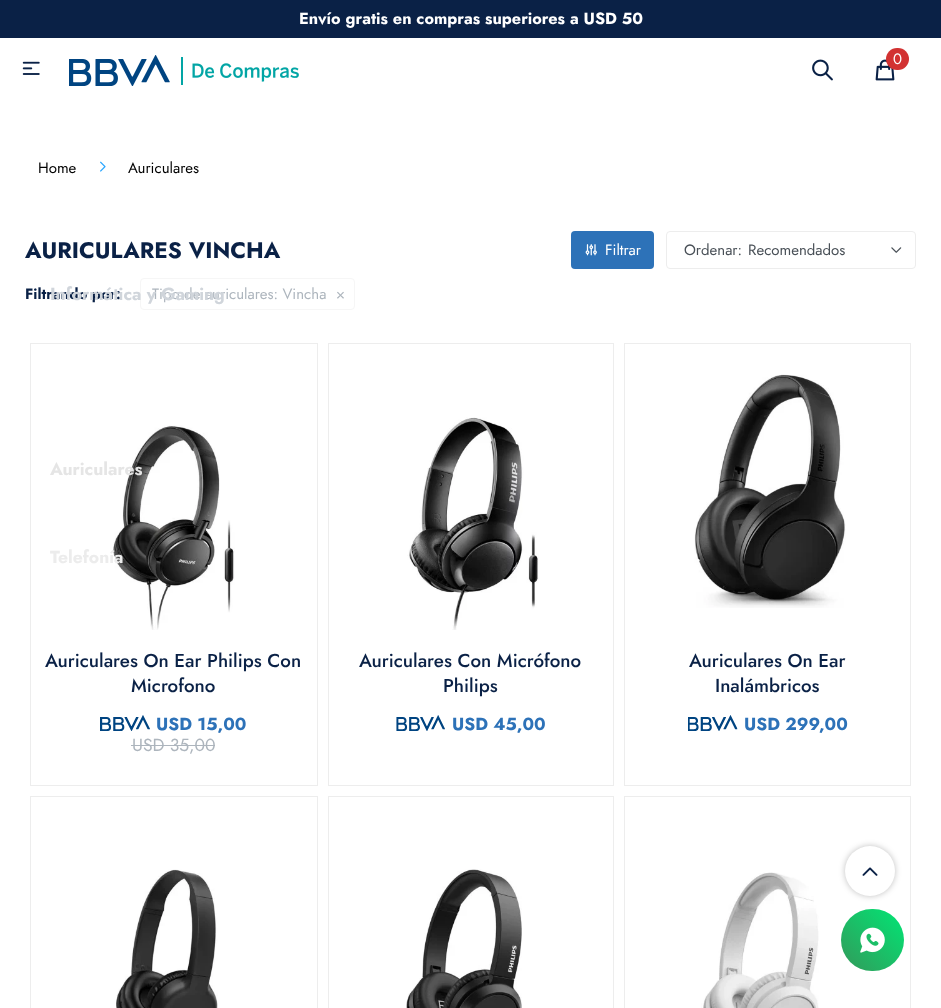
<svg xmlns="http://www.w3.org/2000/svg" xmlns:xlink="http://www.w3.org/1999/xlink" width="941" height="1008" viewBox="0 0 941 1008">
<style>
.cls-1{font:bold 16.25px Jost;fill:#ffffff}
.cls-2{font:15px Jost;fill:#ffffff}
.cls-3{font:15px Jost;fill:#000000}
.cls-4{font:bold 22.5px Jost;fill:#0a2146}
.cls-5{font:15px Jost;fill:#495057}
.cls-6{font:bold 15px Jost;fill:#0a2146}
.cls-7{font:15px Jost;fill:#adb5bd}
.cls-8{font:500 18.75px Jost;fill:#0a2146}
.cls-9{font:bold 17.5px Jost;fill:#2d72b8}
.cls-10{font:17.5px Jost;fill:#adb5bd}
.cls-11{font:bold 17.5px Jost;fill:#d0d5db}
.cls-12{font:bold 17.5px Jost;fill:#e5e5e5}
.cls-13{font:bold 17.5px Jost;fill:#ececec}
</style>
<defs>
<linearGradient id="g1" gradientUnits="userSpaceOnUse" x1="841" y1="971" x2="904" y2="909"><stop offset="0" stop-color="#33995a"/><stop offset="1" stop-color="#01e675"/></linearGradient>
</defs>
<rect width="100%" height="100%" fill="#ffffff"/>
<rect fill="#0a2146" x="0" y="0" width="941" height="38"/>
<image xlink:href="image0.png" x="22" y="61" width="18" height="14"/>
<image xlink:href="image1.png" x="69" y="55" width="230" height="31"/>
<image xlink:href="image2.png" x="812" y="59" width="21" height="22"/>
<image xlink:href="image3.png" x="875" y="59" width="20" height="22"/>
<rect fill="#d23232" x="886" y="48" width="23" height="22" rx="11"/>
<image xlink:href="image4.png" x="100" y="161" width="6" height="11"/>
<rect fill="#2d72b8" x="571" y="231" width="83" height="38" rx="4"/>
<image xlink:href="image5.png" x="585" y="244" width="12" height="12"/>
<image xlink:href="image6.png" x="891" y="247" width="11" height="6"/>
<rect fill="none" stroke="#ededed" x="666.5" y="231.5" width="249" height="37" rx="3.5"/>
<rect fill="none" stroke="#f6f6f6" x="140.5" y="278.5" width="214" height="31" rx="3.5"/>
<image xlink:href="image7.png" x="113" y="425" width="122" height="205"/>
<image xlink:href="image8.png" x="100" y="715" width="50" height="16"/>
<rect fill="#adb5bd" x="131" y="745" width="84" height="1"/>
<rect fill="none" stroke="#ededed" x="30.5" y="343.5" width="287" height="442"/>
<image xlink:href="image9.png" x="407" y="417" width="132" height="213"/>
<image xlink:href="image10.png" x="396" y="715" width="49" height="16"/>
<rect fill="none" stroke="#ededed" x="328.5" y="343.5" width="285" height="442"/>
<image xlink:href="image11.png" x="694" y="374" width="152" height="234"/>
<image xlink:href="image12.png" x="688" y="715" width="50" height="16"/>
<rect fill="none" stroke="#ededed" x="624.5" y="343.5" width="286" height="442"/>
<image xlink:href="image13.png" x="116" y="869" width="102" height="139"/>
<rect fill="none" stroke="#ededed" x="30.5" y="796.5" width="287" height="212"/>
<image xlink:href="image14.png" x="406" y="869" width="116" height="139"/>
<rect fill="none" stroke="#ededed" x="328.5" y="796.5" width="285" height="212"/>
<image xlink:href="image15.png" x="701" y="872" width="118" height="136"/>
<rect fill="none" stroke="#ededed" x="624.5" y="796.5" width="286" height="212"/>
<rect fill="#000000" fill-opacity="0.25" filter="blur(3px)" x="845" y="846" width="50" height="50" rx="25"/>
<circle fill="#ffffff" cx="870" cy="871" r="25"/>
<image xlink:href="image16.png" x="862" y="867" width="16" height="9"/>
<rect fill="url(#g1)" x="841" y="909" width="63" height="62" rx="31"/>
<image xlink:href="image17.png" x="860" y="927" width="25" height="26"/>
<text class="cls-1" x="299" y="24">Envío gratis en compras superiores a USD 50</text>
<text class="cls-2" x="893" y="64">0</text>
<text class="cls-3" x="38" y="173">Home</text>
<text class="cls-3" x="128" y="173">Auriculares</text>
<text class="cls-4" x="25" y="258">AURICULARES VINCHA</text>
<text class="cls-2" x="605" y="255">Filtrar</text>
<text class="cls-5" x="684" y="255">Ordenar:</text>
<text class="cls-5" x="748" y="255">Recomendados</text>
<text class="cls-6" x="25" y="299">Filtrando por:</text>
<text class="cls-7" x="152" y="299">Tipo de auriculares: Vincha</text>
<text class="cls-7" x="336" y="299">×</text>
<text class="cls-8" x="45" y="667">Auriculares On Ear Philips Con</text>
<text class="cls-8" x="131" y="692">Microfono</text>
<text class="cls-9" x="156" y="730">USD 15,00</text>
<text class="cls-10" x="132" y="751">USD 35,00</text>
<text class="cls-8" x="359" y="667">Auriculares Con Micrófono</text>
<text class="cls-8" x="443" y="692">Philips</text>
<text class="cls-9" x="452" y="730">USD 45,00</text>
<text class="cls-8" x="689" y="667">Auriculares On Ear</text>
<text class="cls-8" x="715" y="692">Inalámbricos</text>
<text class="cls-9" x="744" y="730">USD 299,00</text>
<text class="cls-11" x="50" y="300">Informática y Gaming</text>
<text class="cls-12" x="50" y="475">Auriculares</text>
<text class="cls-13" x="50" y="563">Telefonía</text>
</svg>
